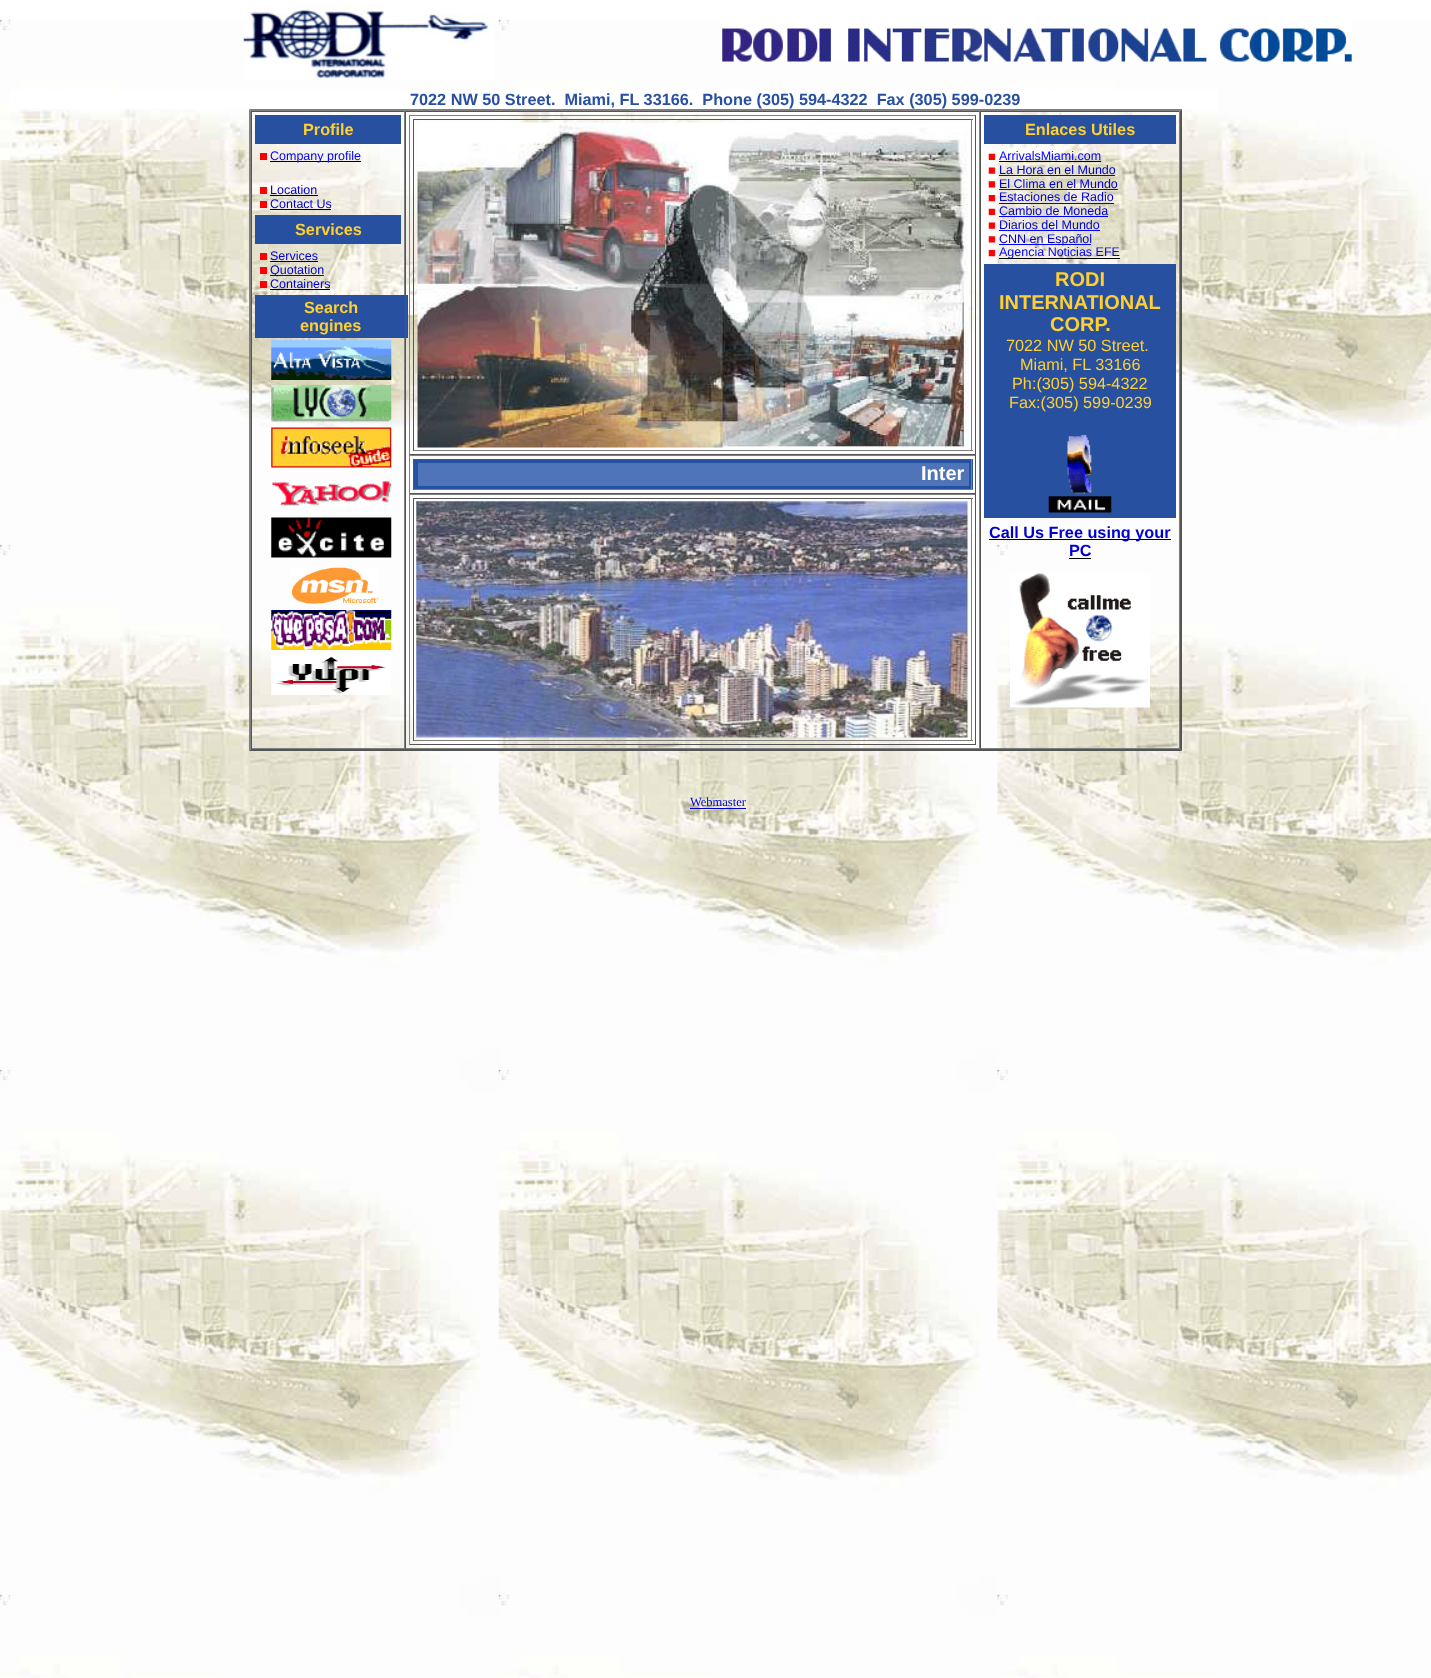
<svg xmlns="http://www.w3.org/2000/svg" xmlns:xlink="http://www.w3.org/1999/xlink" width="1431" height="1678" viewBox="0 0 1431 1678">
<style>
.cls-1{font:bold 16.25px Liberation Sans;fill:#2850a0}
.cls-2{font:bold 16.25px Liberation Sans;fill:#ffd030}
.cls-3{font:12.5px Liberation Sans;fill:#0000ff}
.cls-4{font:12.5px Liberation Sans;fill:#0000d2}
.cls-5{font:bold 20px Liberation Sans;fill:#ffffff}
.cls-6{font:bold 20px Liberation Sans;fill:#ffd030}
.cls-7{font:16.25px Liberation Sans;fill:#ffd030}
.cls-8{font:bold 16.25px Liberation Sans;fill:#0000d2}
.cls-9{font:12.5px Liberation Serif;fill:#0000d2}
</style>
<rect width="100%" height="100%" fill="#ffffff"/>
<image xlink:href="image0.png" x="0" y="19" width="1431" height="1659"/>
<image xlink:href="image1.png" x="243" y="4" width="251" height="77"/>
<image xlink:href="image2.png" x="722" y="19" width="630" height="43"/>
<rect fill="#ffffff" x="10" y="90" width="1208" height="19"/>
<path fill="#808080" d="M249 109H1182L1180 111H251Z"/>
<path fill="#555555" d="M1182 109V751L1180 749V111Z"/>
<path fill="#555555" d="M1182 751H249L251 749H1180Z"/>
<path fill="#808080" d="M249 751V109L251 111V749Z"/>
<rect fill="#555555" x="251" y="111" width="929" height="1"/>
<rect fill="#808080" x="404" y="111" width="1" height="638"/>
<rect fill="#808080" x="251" y="748" width="154" height="1"/>
<rect fill="#555555" x="251" y="111" width="1" height="638"/>
<rect fill="#2850a0" x="255" y="115" width="146" height="29"/>
<rect fill="#ff0000" x="260" y="153" width="7" height="7"/>
<rect fill="#000000" x="270" y="161" width="91" height="1"/>
<rect fill="#ff0000" x="260" y="187" width="7" height="7"/>
<rect fill="#000000" x="270" y="195" width="48" height="1"/>
<rect fill="#ff0000" x="260" y="201" width="7" height="7"/>
<rect fill="#000000" x="270" y="209" width="61" height="1"/>
<rect fill="#2850a0" x="255" y="215" width="146" height="29"/>
<rect fill="#ff0000" x="260" y="253" width="7" height="7"/>
<rect fill="#000000" x="270" y="261" width="48" height="1"/>
<rect fill="#ff0000" x="260" y="267" width="7" height="7"/>
<rect fill="#0000ff" x="270" y="275" width="54" height="1"/>
<rect fill="#ff0000" x="260" y="281" width="7" height="7"/>
<rect fill="#000000" x="270" y="289" width="60" height="1"/>
<rect fill="#2850a0" x="255" y="295" width="153" height="43"/>
<image xlink:href="image3.png" x="271" y="340" width="121" height="40"/>
<image xlink:href="image4.png" x="271" y="385" width="121" height="38"/>
<image xlink:href="image5.png" x="271" y="427" width="121" height="41"/>
<image xlink:href="image6.png" x="272" y="481" width="120" height="26"/>
<image xlink:href="image7.png" x="271" y="517" width="121" height="41"/>
<image xlink:href="image8.png" x="291" y="567" width="88" height="37"/>
<image xlink:href="image9.png" x="271" y="610" width="121" height="40"/>
<image xlink:href="image10.png" x="271" y="655" width="120" height="40"/>
<rect fill="#808080" x="979" y="111" width="1" height="638"/>
<rect fill="#808080" x="405" y="748" width="575" height="1"/>
<rect fill="#555555" x="405" y="111" width="1" height="638"/>
<rect fill="#808080" x="409" y="115" width="567" height="1"/>
<rect fill="#555555" x="975" y="115" width="1" height="340"/>
<rect fill="#555555" x="409" y="454" width="567" height="1"/>
<rect fill="#808080" x="409" y="115" width="1" height="340"/>
<rect fill="#555555" x="413" y="119" width="560" height="1"/>
<rect fill="#808080" x="971" y="119" width="1" height="332"/>
<rect fill="#808080" x="413" y="450" width="560" height="1"/>
<rect fill="#555555" x="413" y="119" width="1" height="332"/>
<image xlink:href="image11.png" x="417" y="122" width="552" height="326"/>
<rect fill="#808080" x="409" y="455" width="567" height="1"/>
<rect fill="#555555" x="975" y="455" width="1" height="39"/>
<rect fill="#555555" x="409" y="493" width="567" height="1"/>
<rect fill="#808080" x="409" y="455" width="1" height="39"/>
<rect fill="#2850a0" x="414" y="460" width="559" height="29"/>
<rect fill="#555555" x="413" y="459" width="560" height="1"/>
<rect fill="#808080" x="971" y="459" width="1" height="31"/>
<rect fill="#808080" x="413" y="489" width="560" height="1"/>
<rect fill="#555555" x="413" y="459" width="1" height="31"/>
<rect fill="#5074b8" x="418" y="463" width="551" height="23"/>
<rect fill="#808080" x="409" y="494" width="567" height="1"/>
<rect fill="#555555" x="975" y="494" width="1" height="251"/>
<rect fill="#555555" x="409" y="744" width="567" height="1"/>
<rect fill="#808080" x="409" y="494" width="1" height="251"/>
<rect fill="#555555" x="413" y="498" width="560" height="1"/>
<rect fill="#808080" x="971" y="498" width="1" height="243"/>
<rect fill="#808080" x="413" y="740" width="560" height="1"/>
<rect fill="#555555" x="413" y="498" width="1" height="243"/>
<image xlink:href="image12.png" x="416" y="501" width="553" height="237"/>
<rect fill="#808080" x="1179" y="111" width="1" height="638"/>
<rect fill="#808080" x="980" y="748" width="200" height="1"/>
<rect fill="#555555" x="980" y="111" width="1" height="638"/>
<rect fill="#2850a0" x="984" y="115" width="192" height="29"/>
<image xlink:href="image13.png" x="988" y="153" width="8" height="7"/>
<rect fill="#000000" x="999" y="161" width="102" height="1"/>
<image xlink:href="image14.png" x="988" y="167" width="8" height="7"/>
<rect fill="#0000ff" x="999" y="175" width="116" height="1"/>
<image xlink:href="image15.png" x="988" y="181" width="8" height="7"/>
<rect fill="#0000ff" x="999" y="189" width="119" height="1"/>
<image xlink:href="image16.png" x="988" y="195" width="8" height="7"/>
<rect fill="#0000ff" x="999" y="203" width="115" height="1"/>
<image xlink:href="image13.png" x="988" y="208" width="8" height="7"/>
<rect fill="#0000ff" x="999" y="216" width="109" height="1"/>
<image xlink:href="image14.png" x="988" y="222" width="8" height="7"/>
<rect fill="#0000ff" x="999" y="230" width="101" height="1"/>
<image xlink:href="image15.png" x="988" y="236" width="8" height="7"/>
<rect fill="#0000ff" x="999" y="244" width="92" height="1"/>
<image xlink:href="image16.png" x="988" y="250" width="8" height="7"/>
<rect fill="#000000" x="999" y="258" width="121" height="1"/>
<rect fill="#2850a0" x="984" y="264" width="192" height="254"/>
<image xlink:href="image17.png" x="1048" y="434" width="64" height="79"/>
<rect fill="#000000" x="989" y="539" width="182" height="1"/>
<rect fill="#000000" x="1069" y="558" width="22" height="1"/>
<image xlink:href="image18.png" x="1010" y="573" width="140" height="135"/>
<rect fill="#0000d2" x="690" y="808" width="56" height="1"/>
<text class="cls-1" xml:space="preserve" x="410" y="105">7022 NW 50 Street.  Miami, FL 33166.  Phone (305) 594-4322  Fax (305) 599-0239</text>
<text class="cls-2" x="303" y="135">Profile</text>
<text class="cls-3" x="270" y="160">Company profile</text>
<text class="cls-4"><tspan x="270" y="194">Location</tspan><tspan x="270" y="208">Contact Us</tspan></text>
<text class="cls-2" x="295" y="235">Services</text>
<text class="cls-4"><tspan x="270" y="260">Services</tspan><tspan x="270" y="274">Quotation</tspan><tspan x="270" y="288">Containers</tspan></text>
<text class="cls-2" x="304" y="313">Search</text>
<text class="cls-2" x="300" y="331">engines</text>
<text class="cls-5" x="921" y="480">Inter</text>
<text class="cls-2" x="1025" y="135">Enlaces Utiles</text>
<text class="cls-3" x="999" y="160">ArrivalsMiami.com</text>
<text class="cls-4"><tspan x="999" y="174">La Hora en el Mundo</tspan><tspan x="999" y="188">El Clima en el Mundo</tspan><tspan x="999" y="201">Estaciones de Radio</tspan><tspan x="999" y="215">Cambio de Moneda</tspan><tspan x="999" y="229">Diarios del Mundo</tspan><tspan x="999" y="243">CNN en Español</tspan></text>
<text class="cls-3" x="999" y="256">Agencia Noticias EFE</text>
<text class="cls-6" x="1055" y="286">RODI</text>
<text class="cls-6" x="999" y="309">INTERNATIONAL</text>
<text class="cls-6" x="1050" y="331">CORP.</text>
<text class="cls-7" x="1006" y="351">7022 NW 50 Street.</text>
<text class="cls-7" x="1020" y="370">Miami, FL 33166</text>
<text class="cls-7" x="1012" y="389">Ph:(305) 594-4322</text>
<text class="cls-7" x="1009" y="408">Fax:(305) 599-0239</text>
<text class="cls-8" x="989" y="538">Call Us Free using your</text>
<text class="cls-8" x="1069" y="556">PC</text>
<text class="cls-9" x="690" y="806">Webmaster</text>
</svg>
